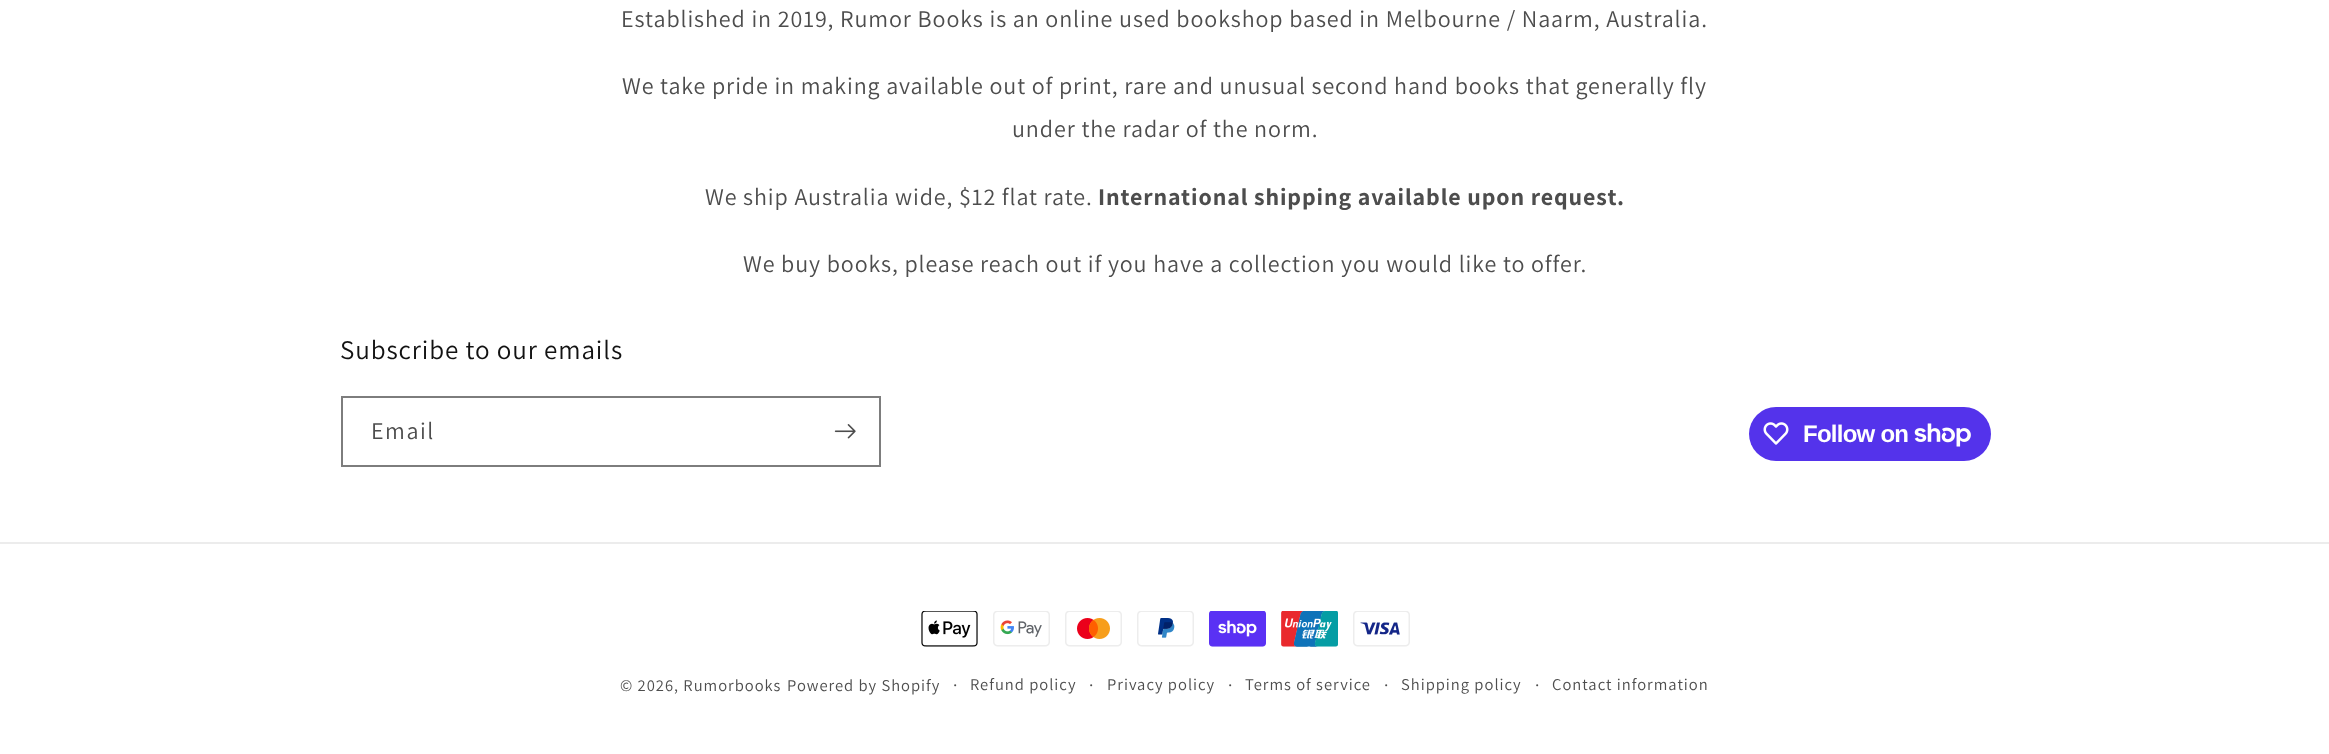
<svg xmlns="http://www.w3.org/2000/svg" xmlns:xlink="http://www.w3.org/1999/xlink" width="2329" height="754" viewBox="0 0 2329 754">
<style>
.cls-1{font:24px Assistant;letter-spacing:0.9px;fill:#4d4d4d}
.cls-2{font:bold 24px Assistant;letter-spacing:0.9px;fill:#4d4d4d}
.cls-3{font:27px Assistant;letter-spacing:0.9px;fill:#121212}
.cls-4{font:24px Assistant;letter-spacing:1.5px;fill:#4d4d4d}
.cls-5{font:bold 24px Liberation Sans;letter-spacing:-0.75px;fill:#ffffff}
.cls-6{font:16.5px Assistant;letter-spacing:1px;fill:#4d4d4d}
.cls-7{font:18px Assistant;letter-spacing:1px;fill:#4d4d4d}
</style>
<rect width="100%" height="100%" fill="#ffffff"/>
<rect fill="none" stroke="#7d7d7d" stroke-width="2" x="342" y="397" width="538" height="69"/>
<image xlink:href="image0.png" x="834" y="424" width="22" height="15"/>
<rect fill="#5433eb" x="1749" y="407" width="242" height="54" rx="27"/>
<image xlink:href="image1.png" x="1763" y="422" width="26" height="23"/>
<image xlink:href="image2.png" x="1914" y="423" width="57" height="24"/>
<rect fill="#ececec" x="0" y="542" width="2329" height="2"/>
<image xlink:href="image3.png" x="921" y="611" width="57" height="36"/>
<image xlink:href="image4.png" x="993" y="611" width="57" height="36"/>
<image xlink:href="image5.png" x="1065" y="611" width="57" height="36"/>
<image xlink:href="image6.png" x="1137" y="611" width="57" height="36"/>
<image xlink:href="image7.png" x="1209" y="611" width="57" height="36"/>
<image xlink:href="image8.png" x="1281" y="611" width="57" height="36"/>
<image xlink:href="image9.png" x="1353" y="611" width="57" height="36"/>
<text class="cls-1" x="621" y="27">Established in 2019, Rumor Books is an online used bookshop based in Melbourne / Naarm, Australia.</text>
<text class="cls-1" x="622" y="94">We take pride in making available out of print, rare and unusual second hand books that generally fly</text>
<text class="cls-1" x="1012" y="137">under the radar of the norm.</text>
<text class="cls-1" x="705" y="205">We ship Australia wide, $12 flat rate.</text>
<text class="cls-2" x="1098" y="205">International shipping available upon request.</text>
<text class="cls-1" x="743" y="272">We buy books, please reach out if you have a collection you would like to offer.</text>
<text class="cls-3" x="340" y="359">Subscribe to our emails</text>
<text class="cls-4" x="371" y="439">Email</text>
<text class="cls-5" x="1803" y="442">Follow on</text>
<text class="cls-6" x="620" y="691">© 2026, Rumorbooks</text>
<text class="cls-6" x="787" y="691">Powered by Shopify</text>
<text class="cls-7" x="953" y="691">·</text>
<text class="cls-6" x="970" y="690">Refund policy</text>
<text class="cls-7" x="1089" y="691">·</text>
<text class="cls-6" x="1107" y="690">Privacy policy</text>
<text class="cls-7" x="1228" y="691">·</text>
<text class="cls-6" x="1245" y="690">Terms of service</text>
<text class="cls-7" x="1384" y="691">·</text>
<text class="cls-6" x="1401" y="690">Shipping policy</text>
<text class="cls-7" x="1535" y="691">·</text>
<text class="cls-6" x="1552" y="690">Contact information</text>
</svg>
